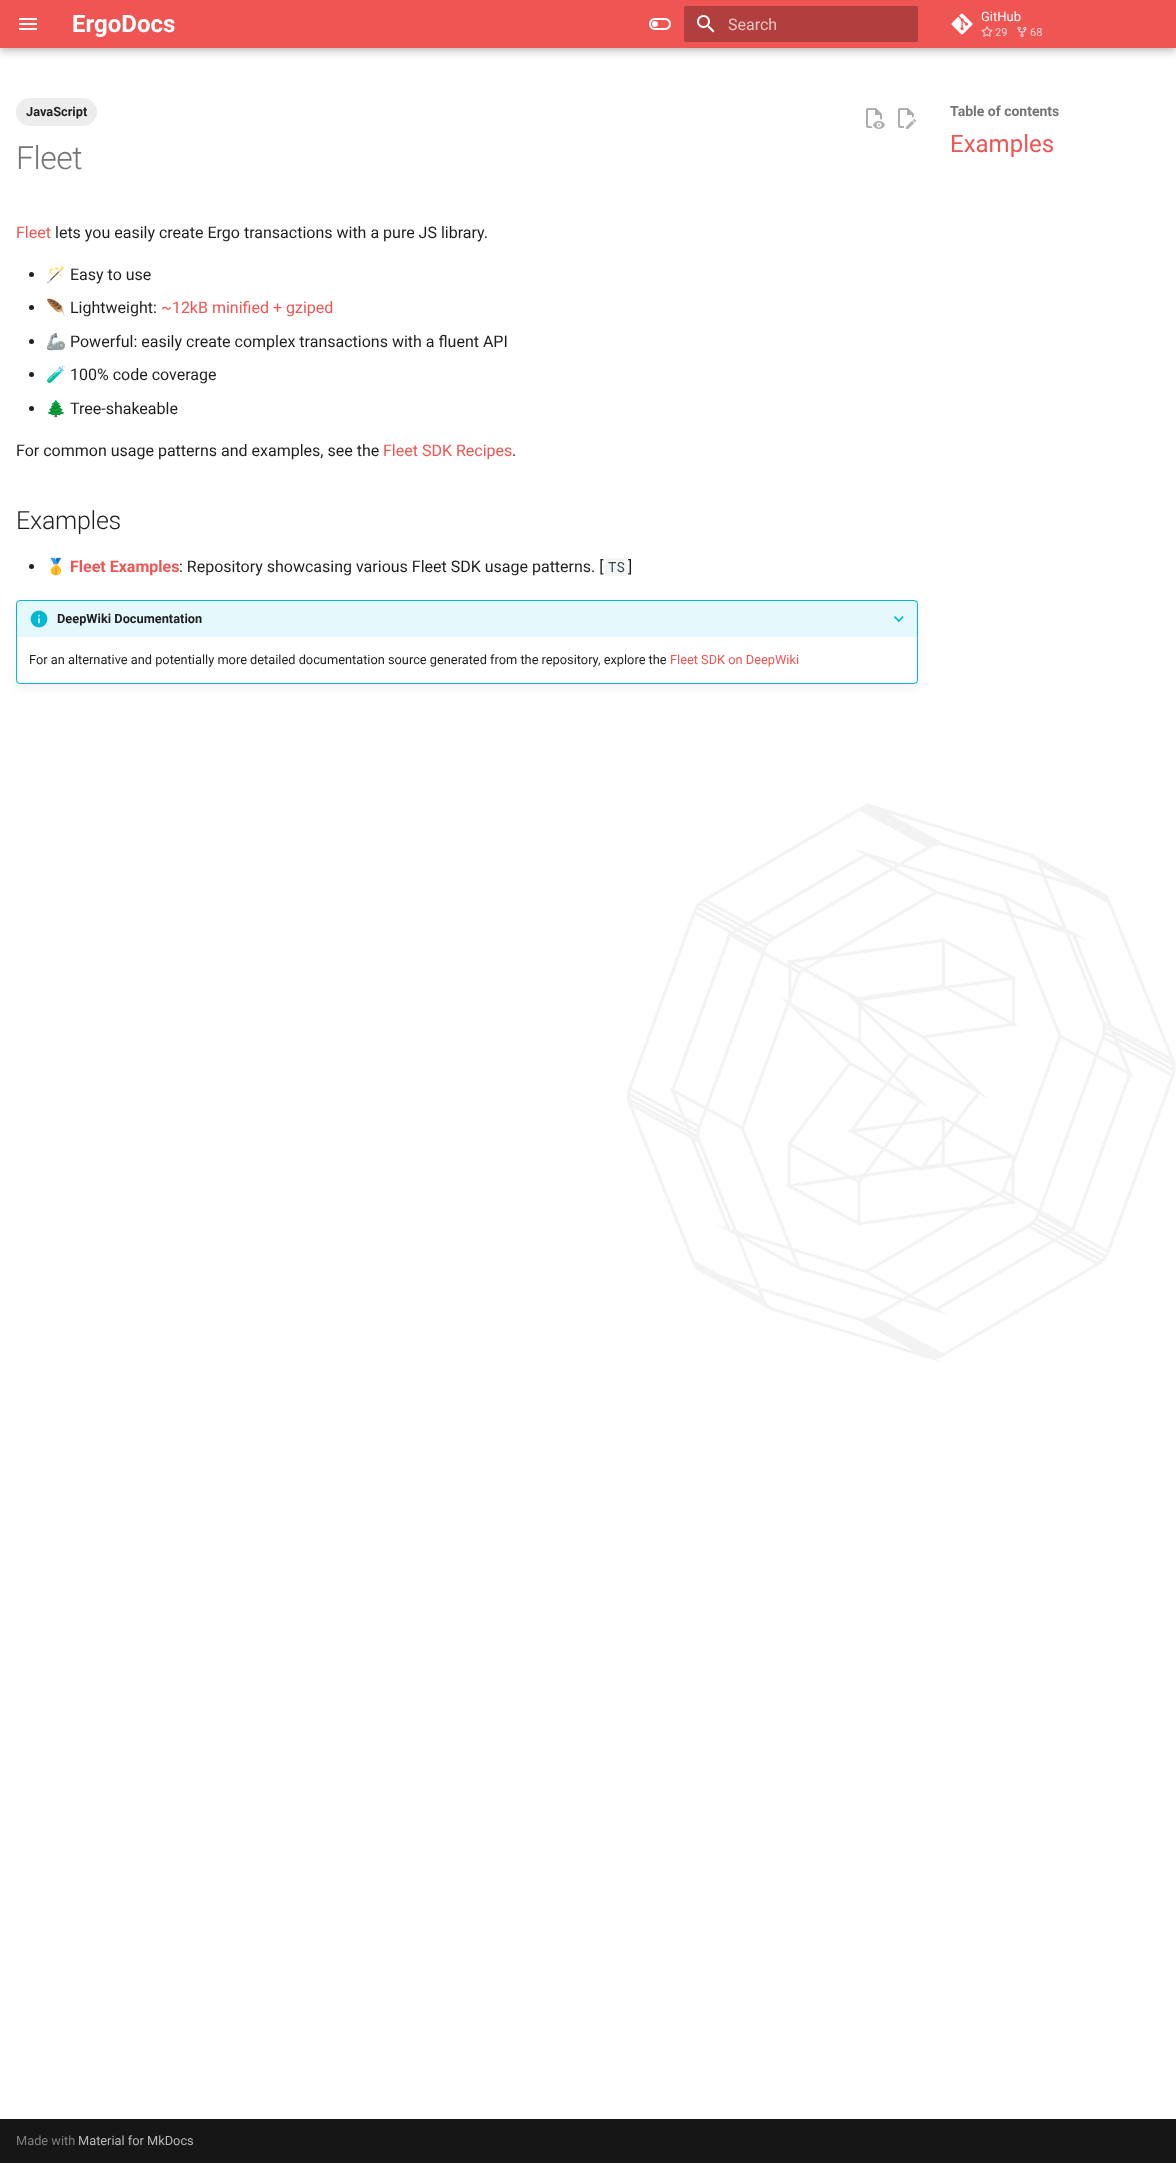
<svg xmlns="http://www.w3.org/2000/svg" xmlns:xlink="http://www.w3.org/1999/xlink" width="1176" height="2163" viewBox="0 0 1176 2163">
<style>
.cls-1{font:bold 24px Roboto;fill:#ffffff}
.cls-2{font:16px Roboto;fill:#e8c5c5}
.cls-3{font:13px Roboto;fill:#ffffff}
.cls-4{font:11px Roboto;fill:#fbd5d4}
.cls-5{font:bold 12.8px Roboto;fill:#1f1f1f}
.cls-6{font:300 32px Roboto;letter-spacing:-0.5px;fill:#757575}
.cls-7{font:16px Roboto;fill:#ef5552}
.cls-8{font:16px Roboto;fill:#1f1f1f}
.cls-9{font:16px Noto Color Emoji;fill:#1f1f1f}
.cls-10{font:300 25px Roboto;letter-spacing:-0.25px;fill:#1f1f1f}
.cls-11{font:bold 16px Roboto;fill:#ef5552}
.cls-12{font:14px Roboto Mono;fill:#36464e}
.cls-13{font:12.8px Roboto;fill:#1f1f1f}
.cls-14{font:12.8px Roboto;fill:#ef5552}
.cls-15{font:bold 14px Roboto;fill:#757575}
.cls-16{font:24px Roboto;fill:#ef5552}
.cls-17{font:12.8px Roboto;fill:#7f7f7f}
.cls-18{font:12.8px Roboto;fill:#b9b9b9}
</style>
<rect width="100%" height="100%" fill="#ffffff"/>
<image xlink:href="image0.png" x="627" y="802" width="549" height="560"/>
<rect fill="#000000" fill-opacity="0.2" filter="blur(4px)" x="0" y="4" width="1176" height="48"/>
<rect fill="#000000" fill-opacity="0.1" filter="blur(2px)" x="0" y="0" width="1176" height="48"/>
<rect fill="#ef5552" x="0" y="0" width="1176" height="48"/>
<image xlink:href="image1.png" x="19" y="18" width="18" height="12"/>
<image xlink:href="image2.png" x="649" y="18" width="22" height="12"/>
<rect fill="#b13f3d" x="684" y="6" width="234" height="36" rx="2"/>
<image xlink:href="image3.png" x="697" y="15" width="18" height="18"/>
<image xlink:href="image4.png" x="951" y="13" width="22" height="22"/>
<image xlink:href="image5.png" x="981" y="26" width="12" height="11"/>
<image xlink:href="image6.png" x="1017" y="26" width="10" height="12"/>
<rect fill="#ededed" x="16" y="98" width="81" height="28" rx="14"/>
<image xlink:href="image7.png" x="866" y="108" width="19" height="21"/>
<image xlink:href="image8.png" x="898" y="108" width="18" height="21"/>
<circle fill="#212121" cx="31.5" cy="274.5" r="2.5"/>
<circle fill="#212121" cx="31.5" cy="307.5" r="2.5"/>
<circle fill="#212121" cx="31.5" cy="341.5" r="2.5"/>
<circle fill="#212121" cx="31.5" cy="374.5" r="2.5"/>
<circle fill="#212121" cx="31.5" cy="408.5" r="2.5"/>
<circle fill="#212121" cx="31.5" cy="566.5" r="2.5"/>
<rect fill="#f5f5f5" x="604" y="558" width="24" height="18" rx="2"/>
<rect fill="#000000" fill-opacity="0.1" filter="blur(0.5px)" x="16" y="600" width="902" height="84" rx="4"/>
<rect fill="#000000" fill-opacity="0.05" filter="blur(5px)" x="16" y="604" width="902" height="84" rx="4"/>
<rect fill="#ffffff" stroke="#00b8d4" x="16.5" y="600.5" width="901" height="83" rx="3.5"/>
<path fill="#00b8d4" fill-opacity="0.1" d="M19 601H915C916 601 917 602 917 603V637H17V603C17 602 18 601 19 601Z"/>
<image xlink:href="image9.png" x="30" y="610" width="18" height="18"/>
<image xlink:href="image10.png" x="893" y="616" width="11" height="6"/>
<rect fill="#161616" x="0" y="2119" width="1176" height="44"/>
<text class="cls-1" x="72" y="32">ErgoDocs</text>
<text class="cls-2" x="728" y="30">Search</text>
<text class="cls-3" x="981" y="21">GitHub</text>
<text class="cls-4" x="995" y="36">29</text>
<text class="cls-4" x="1030" y="36">68</text>
<text class="cls-5" x="26" y="116">JavaScript</text>
<text class="cls-6" x="16" y="169">Fleet</text>
<text class="cls-7" x="16" y="238">Fleet</text>
<text class="cls-8" x="55" y="238">lets you easily create Ergo transactions with a pure JS library.</text>
<text class="cls-9" x="46" y="280">🪄</text>
<text class="cls-8" x="70" y="280">Easy to use</text>
<text class="cls-9" x="46" y="313">🪶</text>
<text class="cls-8" x="70" y="313">Lightweight:</text>
<text class="cls-7" x="161" y="313">~12kB minified + gziped</text>
<text class="cls-9" x="46" y="347">🦾</text>
<text class="cls-8" x="70" y="347">Powerful: easily create complex transactions with a fluent API</text>
<text class="cls-9" x="46" y="380">🧪</text>
<text class="cls-8" x="70" y="380">100% code coverage</text>
<text class="cls-9" x="46" y="414">🌲</text>
<text class="cls-8" x="70" y="414">Tree-shakeable</text>
<text class="cls-8" x="16" y="456">For common usage patterns and examples, see the</text>
<text class="cls-7" x="383" y="456">Fleet SDK Recipes</text>
<text class="cls-8" x="512" y="456">.</text>
<text class="cls-10" x="16" y="529">Examples</text>
<text class="cls-9" x="46" y="572">🥇</text>
<text class="cls-11" x="70" y="572">Fleet Examples</text>
<text class="cls-8" x="179" y="572">: Repository showcasing various Fleet SDK usage patterns. [</text>
<text class="cls-12" x="608" y="572">TS</text>
<text class="cls-8" x="628" y="572">]</text>
<text class="cls-5" x="57" y="623">DeepWiki Documentation</text>
<text class="cls-13" x="29" y="664">For an alternative and potentially more detailed documentation source generated from the repository, explore the</text>
<text class="cls-14" x="670" y="664">Fleet SDK on DeepWiki</text>
<text class="cls-15" x="950" y="116">Table of contents</text>
<text class="cls-16" x="950" y="152">Examples</text>
<text class="cls-17" x="16" y="2145">Made with</text>
<text class="cls-18" x="78" y="2145">Material for MkDocs</text>
</svg>
